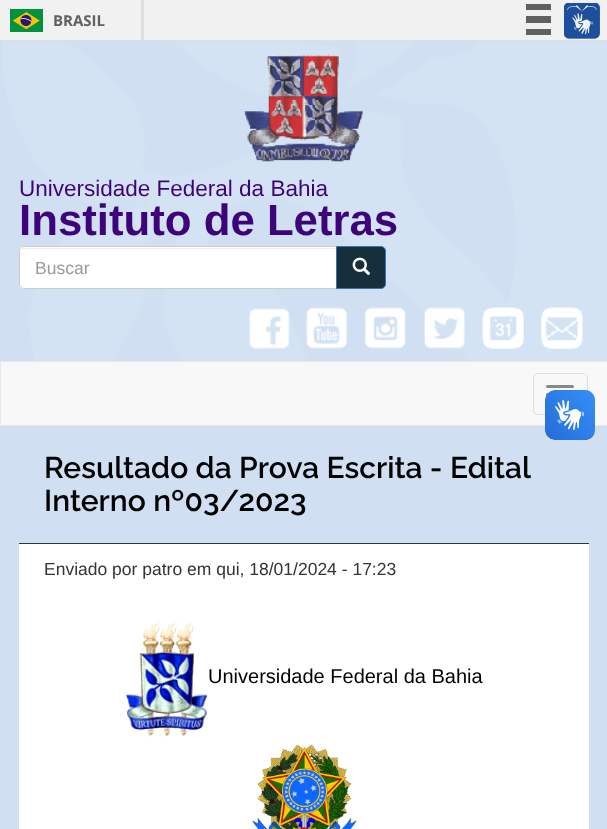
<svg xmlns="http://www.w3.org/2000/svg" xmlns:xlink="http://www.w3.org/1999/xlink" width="607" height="829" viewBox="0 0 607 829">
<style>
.cls-1{font:bold 15px Open Sans;fill:#606060}
.cls-2{font:22.5px Liberation Sans;fill:#3e0379}
.cls-3{font:bold 43.75px Liberation Sans;fill:#3e0379}
.cls-4{font:17.5px Liberation Sans;fill:#999999}
.cls-5{font:600 30px Raleway;fill:#000000}
.cls-6{font:17.5px Liberation Sans;fill:#333333}
.cls-7{font:20px Liberation Sans;fill:#000000}
</style>
<rect width="100%" height="100%" fill="#f1f1f1"/>
<rect fill="#dfdfdf" x="0" y="40" width="607" height="1"/>
<rect fill="#dfdfdf" x="141" y="0" width="3" height="40"/>
<image xlink:href="image0.png" x="10" y="9" width="33" height="23"/>
<rect fill="#606060" x="526" y="4" width="25" height="6"/>
<rect fill="#606060" x="526" y="16" width="25" height="7"/>
<rect fill="#606060" x="526" y="29" width="25" height="6"/>
<image xlink:href="image1.png" x="564" y="3" width="36" height="36"/>
<rect fill="#d0e0f2" x="0" y="41" width="607" height="320"/>
<image xlink:href="image2.png" x="2" y="42" width="605" height="319"/>
<image xlink:href="image3.png" x="243" y="54" width="120" height="108"/>
<path fill="#ffffff" d="M24 246H338V289H24C21 289 19 287 19 284V251C19 248 21 246 24 246Z"/>
<path fill="#ececec" d="M24 249H336V248H24C22 248 20 250 20 252C20 250 22 249 24 249Z"/>
<path fill="none" stroke="#cccccc" d="M24 246.5H337.5V288.5H24C21.5 288.5 19.5 286.5 19.5 284V251C19.5 248.5 21.5 246.5 24 246.5Z"/>
<path fill="#172e3b" stroke="#3873b5" d="M336.5 246.5H381C383.5 246.5 385.5 248.5 385.5 251V284C385.5 286.5 383.5 288.5 381 288.5H336.5Z"/>
<image xlink:href="image4.png" x="352" y="257" width="19" height="19"/>
<image xlink:href="image5.png" x="249" y="308" width="41" height="41"/>
<image xlink:href="image6.png" x="306" y="307" width="42" height="42"/>
<image xlink:href="image7.png" x="365" y="307" width="41" height="42"/>
<image xlink:href="image8.png" x="424" y="307" width="41" height="42"/>
<image xlink:href="image9.png" x="482" y="307" width="42" height="42"/>
<image xlink:href="image10.png" x="541" y="307" width="42" height="42"/>
<rect fill="#f8f8f8" stroke="#e7e7e7" x="0.5" y="361.5" width="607" height="64"/>
<rect fill="none" stroke="#dddddd" x="533.5" y="373.5" width="54" height="41" rx="4.5"/>
<rect fill="#888888" x="546" y="385" width="28" height="3" rx="1.5"/>
<rect fill="#888888" x="546" y="393" width="28" height="3" rx="1.5"/>
<rect fill="#d0e0f2" x="0" y="426" width="607" height="403"/>
<image xlink:href="image11.png" x="545" y="390" width="50" height="50"/>
<image xlink:href="image12.png" x="545" y="390" width="50" height="50"/>
<rect fill="#333333" x="19" y="543" width="570" height="1"/>
<rect fill="#ffffff" x="19" y="544" width="570" height="285"/>
<image xlink:href="image13.png" x="126" y="621" width="82" height="116"/>
<image xlink:href="image14.png" x="252" y="744" width="105" height="85"/>
<text class="cls-1" x="53" y="26">BRASIL</text>
<text class="cls-2" x="19" y="196">Universidade Federal da Bahia</text>
<text class="cls-3" x="19" y="235">Instituto de Letras</text>
<text class="cls-4" x="35" y="274">Buscar</text>
<text class="cls-5"><tspan x="44" y="478">Resultado da Prova Escrita - Edital</tspan><tspan x="44" y="511">Interno nº03/2023</tspan></text>
<text class="cls-6" x="44" y="575">Enviado por patro em qui, 18/01/2024 - 17:23</text>
<text class="cls-7" x="208" y="683">Universidade Federal da Bahia</text>
</svg>
